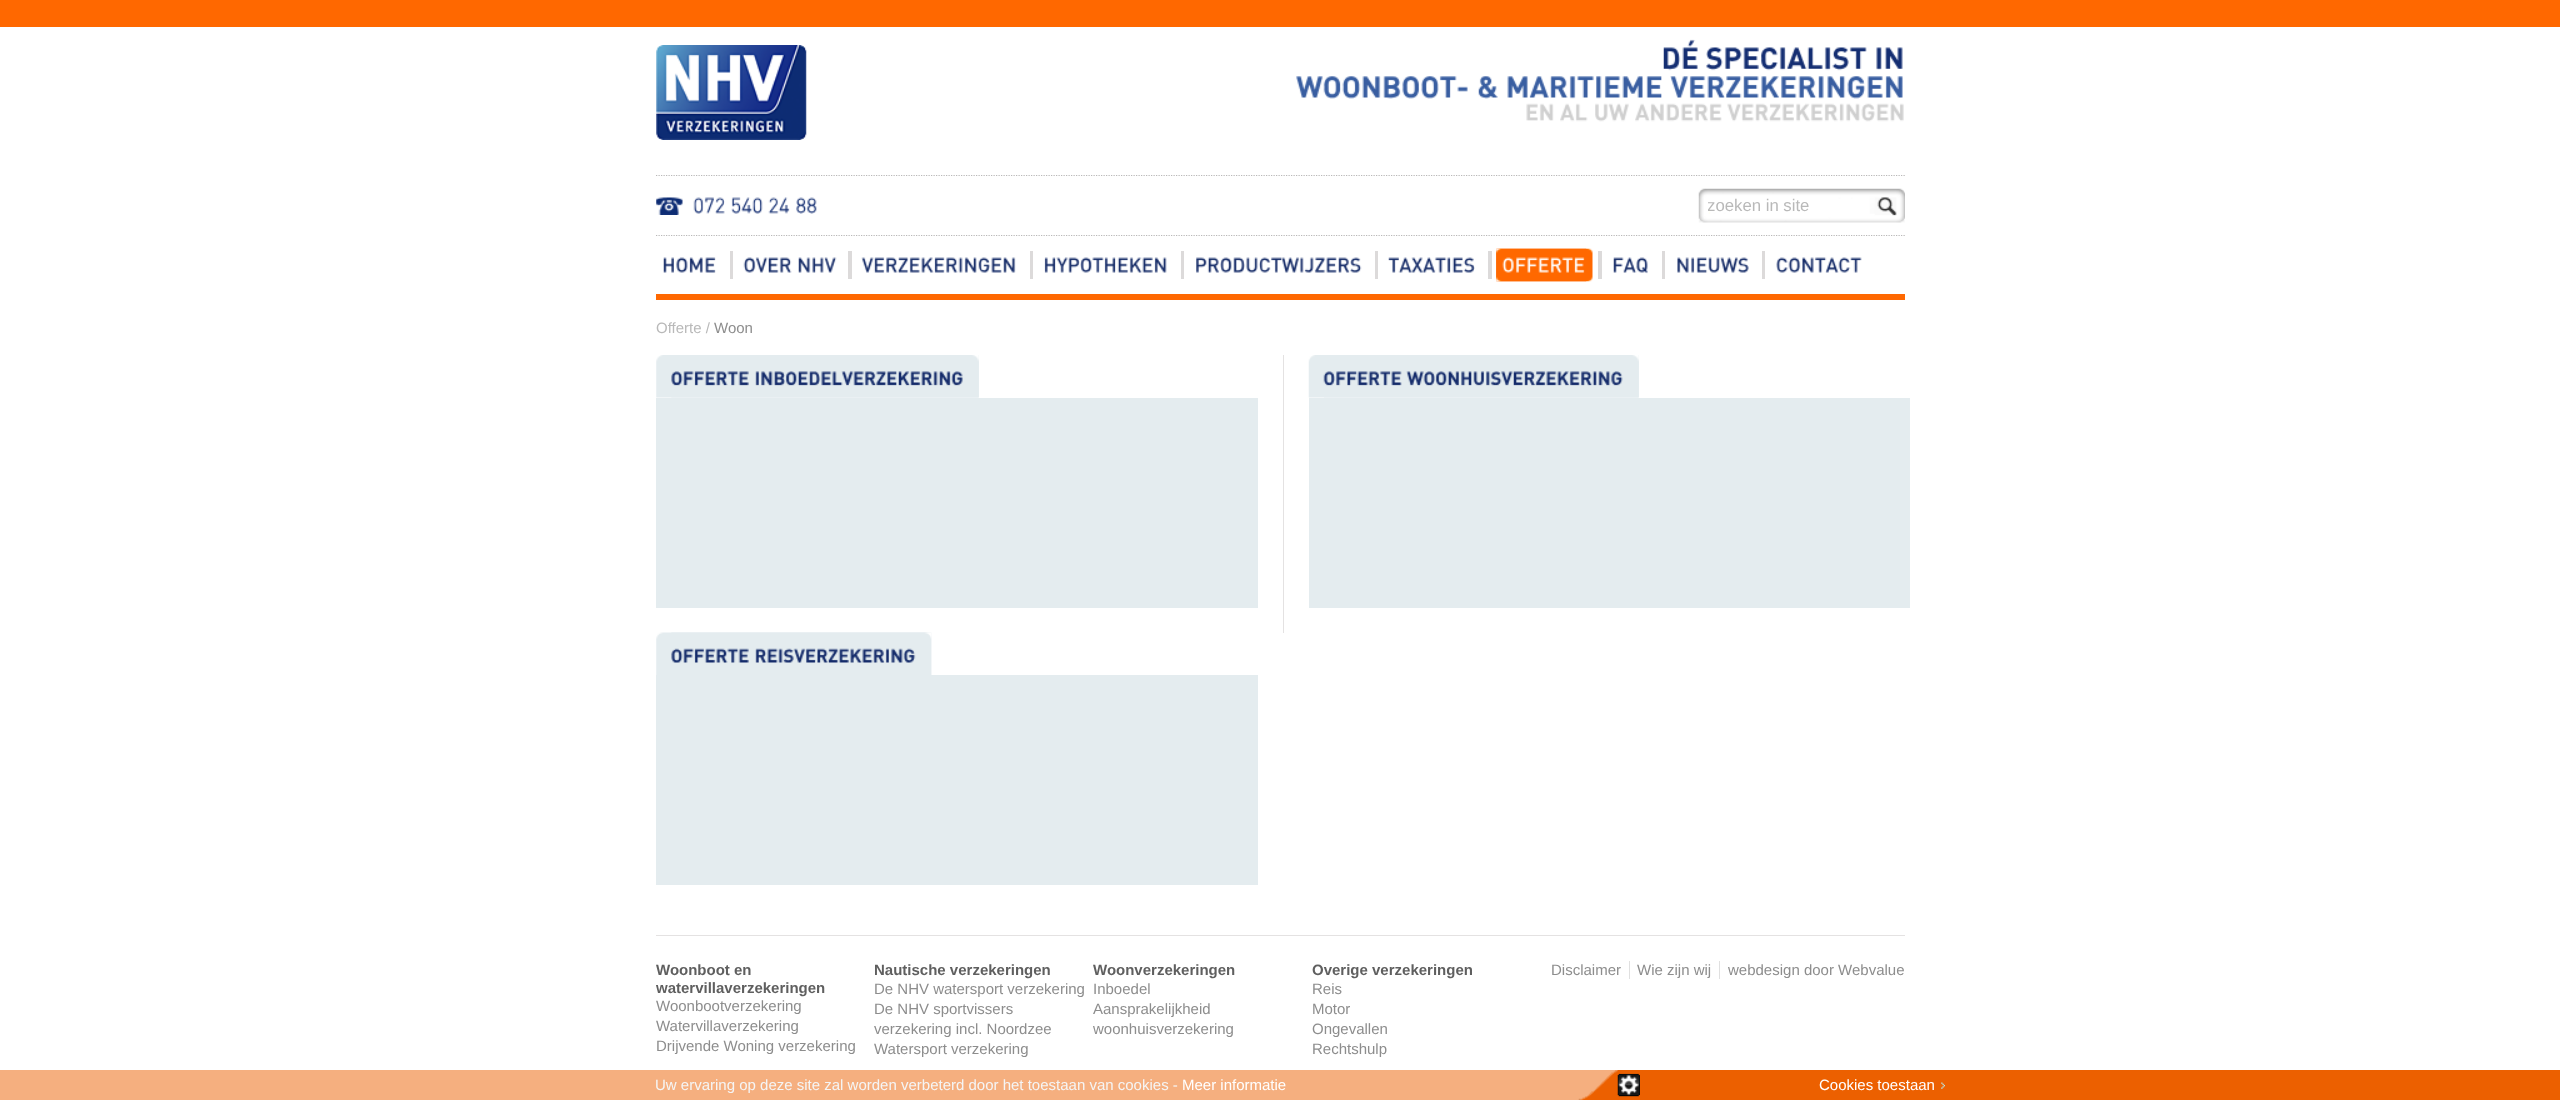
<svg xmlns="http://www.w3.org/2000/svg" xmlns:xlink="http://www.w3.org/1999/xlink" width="2560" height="1100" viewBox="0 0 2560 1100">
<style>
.cls-1{font:16.75px Liberation Sans;fill:#b9b9b9}
.cls-2{font:15px Liberation Sans;fill:#b9b9b9}
.cls-3{font:15px Liberation Sans;fill:#8d8d8d}
.cls-4{font:bold 15px Liberation Sans;fill:#5f5f5f}
.cls-5{font:15px Liberation Sans;fill:#f5f5f5}
.cls-6{font:15px Liberation Sans;fill:#ffffff}
</style>
<defs>
<clipPath id="clip1"><rect x="1708" y="196" width="166" height="19"/></clipPath>
</defs>
<rect width="100%" height="100%" fill="#ffffff"/>
<rect fill="#ff6800" x="0" y="0" width="2560" height="27"/>
<path fill="none" stroke="#b9b8b8" stroke-width="1.2" stroke-dasharray="1.25 1.25" d="M656 175.5H1905"/>
<image xlink:href="image0.png" x="656" y="45" width="151" height="95"/>
<image xlink:href="image1.png" x="1663" y="39" width="35" height="32"/>
<image xlink:href="image2.png" x="1706" y="47" width="161" height="24"/>
<image xlink:href="image3.png" x="1876" y="47" width="27" height="23"/>
<image xlink:href="image4.png" x="1296" y="76" width="172" height="23"/>
<image xlink:href="image5.png" x="1478" y="76" width="20" height="23"/>
<image xlink:href="image6.png" x="1507" y="76" width="155" height="23"/>
<image xlink:href="image7.png" x="1670" y="76" width="233" height="23"/>
<image xlink:href="image8.png" x="1526" y="103" width="28" height="18"/>
<image xlink:href="image9.png" x="1560" y="103" width="28" height="19"/>
<image xlink:href="image10.png" x="1595" y="103" width="34" height="19"/>
<image xlink:href="image11.png" x="1635" y="103" width="87" height="19"/>
<image xlink:href="image12.png" x="1727" y="103" width="177" height="19"/>
<path fill="none" stroke="#b9b8b8" stroke-width="1.2" stroke-dasharray="1.25 1.25" d="M656 235.5H1905"/>
<image xlink:href="image13.png" x="656" y="197" width="27" height="18"/>
<image xlink:href="image14.png" x="693" y="197" width="32" height="17"/>
<image xlink:href="image15.png" x="731" y="197" width="32" height="17"/>
<image xlink:href="image16.png" x="768" y="197" width="22" height="17"/>
<image xlink:href="image17.png" x="796" y="197" width="21" height="17"/>
<image xlink:href="image18.png" x="1698" y="188" width="207" height="35"/>
<rect fill="#ff6801" x="656" y="294" width="1249" height="6"/>
<image xlink:href="image19.png" x="663" y="257" width="53" height="16"/>
<rect fill="#dcdada" x="730" y="251" width="3" height="28"/>
<image xlink:href="image20.png" x="743" y="257" width="49" height="16"/>
<image xlink:href="image21.png" x="798" y="257" width="39" height="16"/>
<rect fill="#dcdada" x="848" y="251" width="4" height="28"/>
<image xlink:href="image22.png" x="861" y="257" width="155" height="16"/>
<rect fill="#dcdada" x="1030" y="251" width="3" height="28"/>
<image xlink:href="image23.png" x="1044" y="257" width="123" height="16"/>
<rect fill="#dcdada" x="1181" y="251" width="3" height="28"/>
<image xlink:href="image24.png" x="1196" y="257" width="166" height="16"/>
<rect fill="#dcdada" x="1375" y="251" width="3" height="28"/>
<image xlink:href="image25.png" x="1388" y="257" width="87" height="16"/>
<rect fill="#dcdada" x="1488" y="251" width="4" height="28"/>
<image xlink:href="image26.png" x="1496" y="248" width="97" height="34"/>
<image xlink:href="image27.png" x="1496" y="248" width="91" height="34"/>
<image xlink:href="image28.png" x="1502" y="257" width="83" height="16"/>
<rect fill="#dcdada" x="1598" y="251" width="4" height="28"/>
<image xlink:href="image29.png" x="1613" y="257" width="35" height="17"/>
<rect fill="#dcdada" x="1662" y="251" width="3" height="28"/>
<image xlink:href="image30.png" x="1677" y="257" width="72" height="16"/>
<rect fill="#dcdada" x="1762" y="251" width="3" height="28"/>
<image xlink:href="image31.png" x="1776" y="257" width="86" height="16"/>
<image xlink:href="image32.png" x="656" y="355" width="323" height="43"/>
<image xlink:href="image33.png" x="671" y="355" width="308" height="43"/>
<image xlink:href="image34.png" x="671" y="371" width="78" height="15"/>
<image xlink:href="image35.png" x="755" y="371" width="208" height="15"/>
<rect fill="#e4ecef" x="656" y="398" width="602" height="210"/>
<image xlink:href="image36.png" x="656" y="632" width="276" height="43"/>
<image xlink:href="image37.png" x="671" y="632" width="261" height="43"/>
<image xlink:href="image38.png" x="671" y="648" width="78" height="15"/>
<image xlink:href="image39.png" x="755" y="648" width="161" height="15"/>
<rect fill="#e4ecef" x="656" y="675" width="602" height="210"/>
<rect fill="#e4e2e2" x="1283" y="355" width="1" height="278"/>
<image xlink:href="image40.png" x="1308" y="355" width="331" height="43"/>
<image xlink:href="image41.png" x="1324" y="355" width="315" height="43"/>
<image xlink:href="image42.png" x="1323" y="371" width="79" height="15"/>
<image xlink:href="image43.png" x="1406" y="371" width="217" height="15"/>
<rect fill="#e4ecef" x="1309" y="398" width="601" height="210"/>
<rect fill="#e4e2e2" x="656" y="935" width="1249" height="1"/>
<rect fill="#e0e0e0" x="1629" y="961" width="1" height="18"/>
<rect fill="#e0e0e0" x="1719" y="961" width="1" height="18"/>
<image xlink:href="image44.png" x="0" y="1070" width="2560" height="30"/>
<image xlink:href="image45.png" x="1617" y="1073" width="23" height="24"/>
<image xlink:href="image46.png" x="1941" y="1082" width="4" height="7"/>
<g clip-path="url(#clip1)">
<text class="cls-1" x="1707" y="211">zoeken in site</text>
</g>
<text class="cls-2" x="656" y="333">Offerte /</text>
<text class="cls-3" x="714" y="333">Woon</text>
<text class="cls-4"><tspan x="656" y="975">Woonboot en</tspan><tspan x="656" y="993">watervillaverzekeringen</tspan></text>
<text class="cls-3"><tspan x="656" y="1011">Woonbootverzekering</tspan><tspan x="656" y="1031">Watervillaverzekering</tspan><tspan x="656" y="1051">Drijvende Woning verzekering</tspan></text>
<text class="cls-4" x="874" y="975">Nautische verzekeringen</text>
<text class="cls-3"><tspan x="874" y="994">De NHV watersport verzekering</tspan><tspan x="874" y="1014">De NHV sportvissers</tspan><tspan x="874" y="1034">verzekering incl. Noordzee</tspan><tspan x="874" y="1054">Watersport verzekering</tspan></text>
<text class="cls-4" x="1093" y="975">Woonverzekeringen</text>
<text class="cls-3"><tspan x="1093" y="994">Inboedel</tspan><tspan x="1093" y="1014">Aansprakelijkheid</tspan><tspan x="1093" y="1034">woonhuisverzekering</tspan></text>
<text class="cls-4" x="1312" y="975">Overige verzekeringen</text>
<text class="cls-3"><tspan x="1312" y="994">Reis</tspan><tspan x="1312" y="1014">Motor</tspan><tspan x="1312" y="1034">Ongevallen</tspan><tspan x="1312" y="1054">Rechtshulp</tspan></text>
<text class="cls-3" x="1551" y="975">Disclaimer</text>
<text class="cls-3" x="1637" y="975">Wie zijn wij</text>
<text class="cls-3" x="1728" y="975">webdesign door Webvalue</text>
<text class="cls-5" x="655" y="1090">Uw ervaring op deze site zal worden verbeterd door het toestaan van cookies -</text>
<text class="cls-6" x="1182" y="1090">Meer informatie</text>
<text class="cls-6" x="1819" y="1090">Cookies toestaan</text>
</svg>
